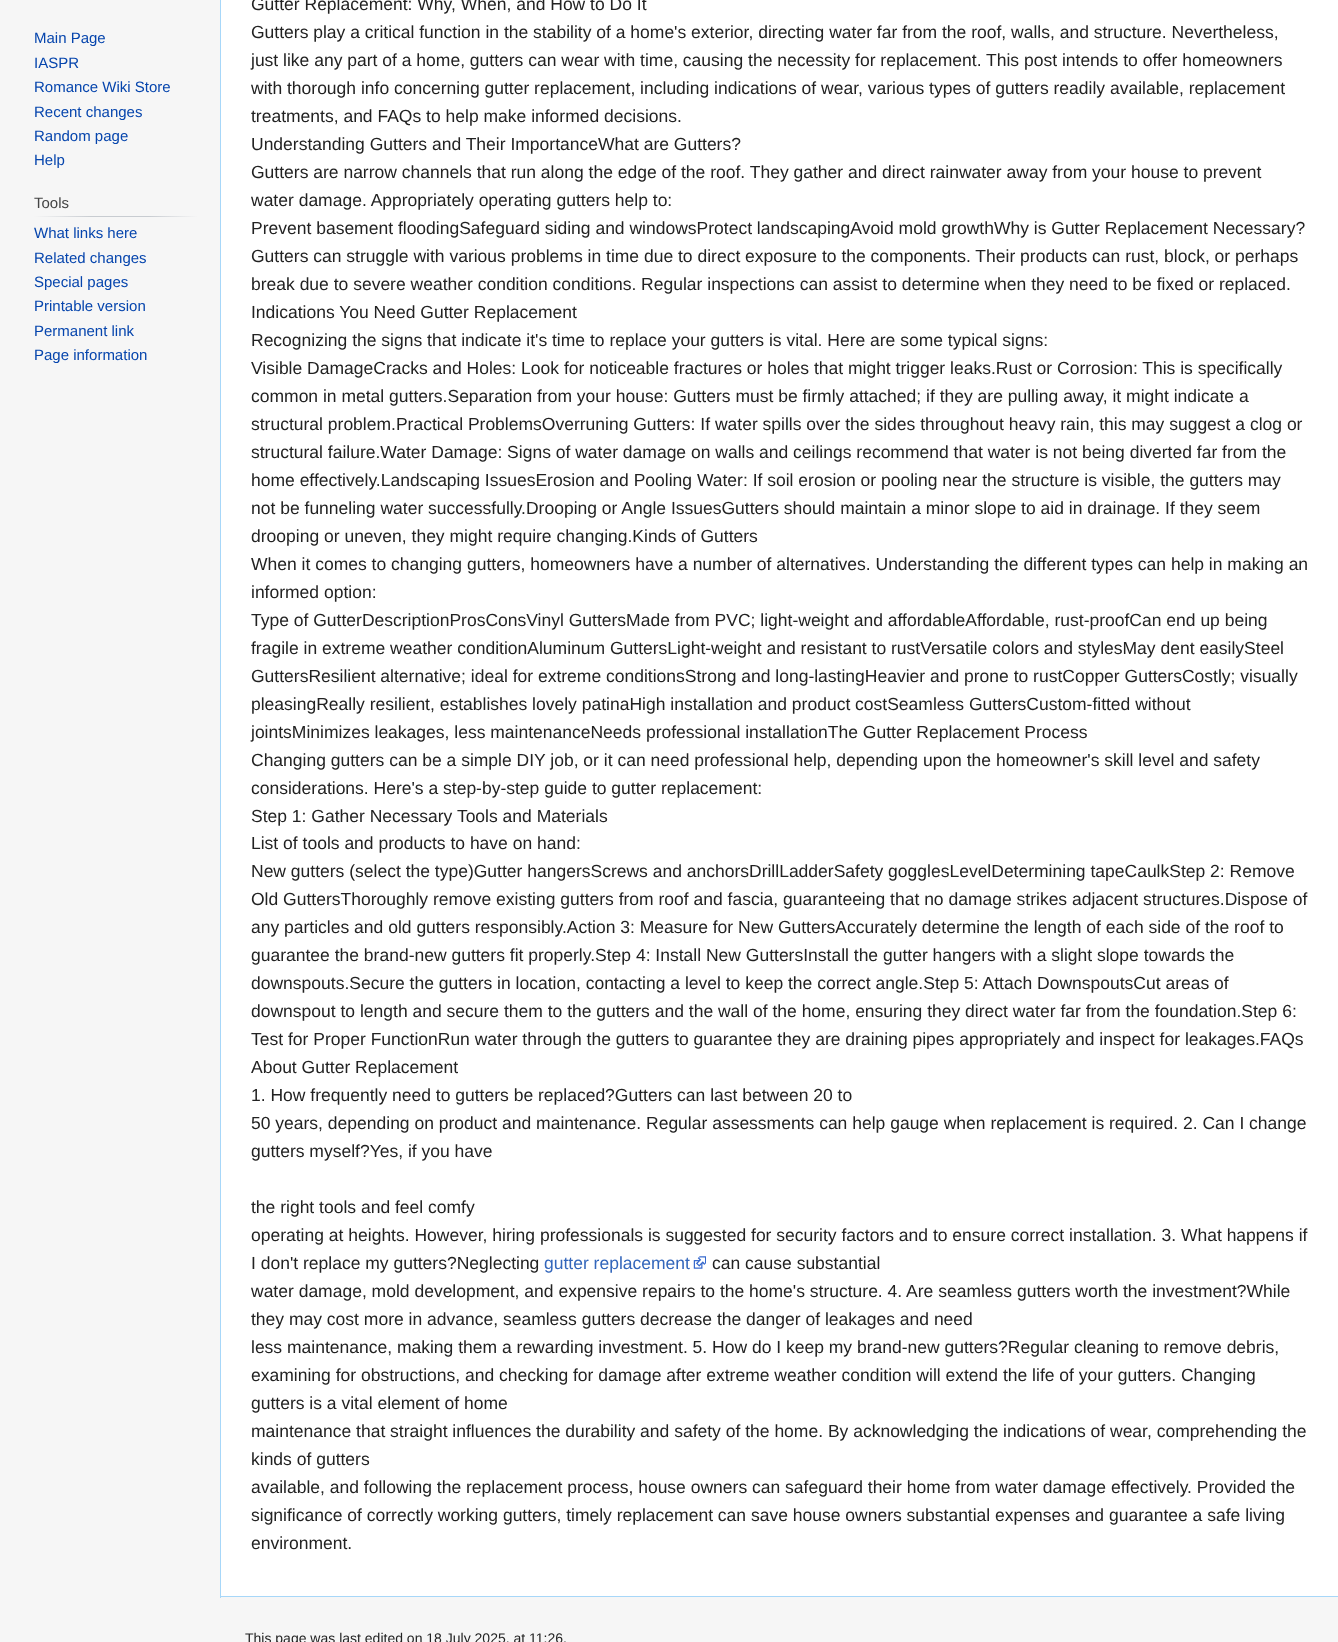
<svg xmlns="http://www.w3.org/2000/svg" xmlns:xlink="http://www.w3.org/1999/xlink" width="1338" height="1642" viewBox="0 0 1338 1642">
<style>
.cls-1{font:15px Liberation Sans;fill:#0645ad}
.cls-2{font:15px Liberation Sans;fill:#444444}
.cls-3{font:17.5px Liberation Sans;fill:#222222}
.cls-4{font:17.5px Liberation Sans;fill:#3366bb}
.cls-5{font:14px Liberation Sans;fill:#222222}
</style>
<defs>
<linearGradient id="g1" gradientUnits="userSpaceOnUse" x1="34" y1="217" x2="198" y2="217"><stop offset="0" stop-color="#f6f6f6"/><stop offset="0.35" stop-color="#c8ccd1"/><stop offset="0.7" stop-color="#c8ccd1"/><stop offset="1" stop-color="#f6f6f6"/></linearGradient>
</defs>
<rect width="100%" height="100%" fill="#f6f6f6"/>
<rect fill="url(#g1)" x="34" y="216" width="164" height="1"/>
<rect fill="#ffffff" x="221" y="0" width="1117" height="1596"/>
<rect fill="#a7d7f9" x="220" y="1596" width="1118" height="1"/>
<rect fill="#a7d7f9" x="220" y="0" width="1" height="1598"/>
<image xlink:href="image0.png" x="693" y="1256" width="13" height="13"/>
<text class="cls-1"><tspan x="34" y="43">Main Page</tspan><tspan x="34" y="68">IASPR</tspan><tspan x="34" y="92">Romance Wiki Store</tspan><tspan x="34" y="117">Recent changes</tspan><tspan x="34" y="141">Random page</tspan><tspan x="34" y="165">Help</tspan></text>
<text class="cls-2" x="34" y="208">Tools</text>
<text class="cls-1"><tspan x="34" y="238">What links here</tspan><tspan x="34" y="263">Related changes</tspan><tspan x="34" y="287">Special pages</tspan><tspan x="34" y="311">Printable version</tspan><tspan x="34" y="336">Permanent link</tspan><tspan x="34" y="360">Page information</tspan></text>
<text class="cls-3"><tspan x="251" y="10">Gutter Replacement: Why, When, and How to Do It</tspan><tspan x="251" y="38">Gutters play a critical function in the stability of a home's exterior, directing water far from the roof, walls, and structure. Nevertheless,</tspan><tspan x="251" y="66">just like any part of a home, gutters can wear with time, causing the necessity for replacement. This post intends to offer homeowners</tspan><tspan x="251" y="94">with thorough info concerning gutter replacement, including indications of wear, various types of gutters readily available, replacement</tspan><tspan x="251" y="122">treatments, and FAQs to help make informed decisions.</tspan><tspan x="251" y="150">Understanding Gutters and Their ImportanceWhat are Gutters?</tspan><tspan x="251" y="178">Gutters are narrow channels that run along the edge of the roof. They gather and direct rainwater away from your house to prevent</tspan><tspan x="251" y="206">water damage. Appropriately operating gutters help to:</tspan><tspan x="251" y="234">Prevent basement floodingSafeguard siding and windowsProtect landscapingAvoid mold growthWhy is Gutter Replacement Necessary?</tspan><tspan x="251" y="262">Gutters can struggle with various problems in time due to direct exposure to the components. Their products can rust, block, or perhaps</tspan><tspan x="251" y="290">break due to severe weather condition conditions. Regular inspections can assist to determine when they need to be fixed or replaced.</tspan><tspan x="251" y="318">Indications You Need Gutter Replacement</tspan><tspan x="251" y="346">Recognizing the signs that indicate it's time to replace your gutters is vital. Here are some typical signs:</tspan><tspan x="251" y="374">Visible DamageCracks and Holes: Look for noticeable fractures or holes that might trigger leaks.Rust or Corrosion: This is specifically</tspan><tspan x="251" y="402">common in metal gutters.Separation from your house: Gutters must be firmly attached; if they are pulling away, it might indicate a</tspan><tspan x="251" y="430">structural problem.Practical ProblemsOverruning Gutters: If water spills over the sides throughout heavy rain, this may suggest a clog or</tspan><tspan x="251" y="458">structural failure.Water Damage: Signs of water damage on walls and ceilings recommend that water is not being diverted far from the</tspan><tspan x="251" y="486">home effectively.Landscaping IssuesErosion and Pooling Water: If soil erosion or pooling near the structure is visible, the gutters may</tspan><tspan x="251" y="514">not be funneling water successfully.Drooping or Angle IssuesGutters should maintain a minor slope to aid in drainage. If they seem</tspan><tspan x="251" y="542">drooping or uneven, they might require changing.Kinds of Gutters</tspan><tspan x="251" y="570">When it comes to changing gutters, homeowners have a number of alternatives. Understanding the different types can help in making an</tspan><tspan x="251" y="598">informed option:</tspan><tspan x="251" y="626">Type of GutterDescriptionProsConsVinyl GuttersMade from PVC; light-weight and affordableAffordable, rust-proofCan end up being</tspan><tspan x="251" y="654">fragile in extreme weather conditionAluminum GuttersLight-weight and resistant to rustVersatile colors and stylesMay dent easilySteel</tspan><tspan x="251" y="682">GuttersResilient alternative; ideal for extreme conditionsStrong and long-lastingHeavier and prone to rustCopper GuttersCostly; visually</tspan><tspan x="251" y="710">pleasingReally resilient, establishes lovely patinaHigh installation and product costSeamless GuttersCustom-fitted without</tspan><tspan x="251" y="738">jointsMinimizes leakages, less maintenanceNeeds professional installationThe Gutter Replacement Process</tspan><tspan x="251" y="766">Changing gutters can be a simple DIY job, or it can need professional help, depending upon the homeowner's skill level and safety</tspan><tspan x="251" y="794">considerations. Here's a step-by-step guide to gutter replacement:</tspan><tspan x="251" y="822">Step 1: Gather Necessary Tools and Materials</tspan><tspan x="251" y="849">List of tools and products to have on hand:</tspan><tspan x="251" y="877">New gutters (select the type)Gutter hangersScrews and anchorsDrillLadderSafety gogglesLevelDetermining tapeCaulkStep 2: Remove</tspan><tspan x="251" y="905">Old GuttersThoroughly remove existing gutters from roof and fascia, guaranteeing that no damage strikes adjacent structures.Dispose of</tspan><tspan x="251" y="933">any particles and old gutters responsibly.Action 3: Measure for New GuttersAccurately determine the length of each side of the roof to</tspan><tspan x="251" y="961">guarantee the brand-new gutters fit properly.Step 4: Install New GuttersInstall the gutter hangers with a slight slope towards the</tspan><tspan x="251" y="989">downspouts.Secure the gutters in location, contacting a level to keep the correct angle.Step 5: Attach DownspoutsCut areas of</tspan><tspan x="251" y="1017">downspout to length and secure them to the gutters and the wall of the home, ensuring they direct water far from the foundation.Step 6:</tspan><tspan x="251" y="1045">Test for Proper FunctionRun water through the gutters to guarantee they are draining pipes appropriately and inspect for leakages.FAQs</tspan><tspan x="251" y="1073">About Gutter Replacement</tspan><tspan x="251" y="1101">1. How frequently need to gutters be replaced?Gutters can last between 20 to</tspan><tspan x="251" y="1129">50 years, depending on product and maintenance. Regular assessments can help gauge when replacement is required. 2. Can I change</tspan><tspan x="251" y="1157">gutters myself?Yes, if you have</tspan></text>
<text class="cls-3"><tspan x="251" y="1213">the right tools and feel comfy</tspan><tspan x="251" y="1241">operating at heights. However, hiring professionals is suggested for security factors and to ensure correct installation. 3. What happens if</tspan><tspan x="251" y="1269">I don't replace my gutters?Neglecting</tspan></text>
<text class="cls-4" x="544" y="1269">gutter replacement</text>
<text class="cls-3" x="712" y="1269">can cause substantial</text>
<text class="cls-3"><tspan x="251" y="1297">water damage, mold development, and expensive repairs to the home's structure. 4. Are seamless gutters worth the investment?While</tspan><tspan x="251" y="1325">they may cost more in advance, seamless gutters decrease the danger of leakages and need</tspan><tspan x="251" y="1353">less maintenance, making them a rewarding investment. 5. How do I keep my brand-new gutters?Regular cleaning to remove debris,</tspan><tspan x="251" y="1381">examining for obstructions, and checking for damage after extreme weather condition will extend the life of your gutters. Changing</tspan><tspan x="251" y="1409">gutters is a vital element of home</tspan><tspan x="251" y="1437">maintenance that straight influences the durability and safety of the home. By acknowledging the indications of wear, comprehending the</tspan><tspan x="251" y="1465">kinds of gutters</tspan><tspan x="251" y="1493">available, and following the replacement process, house owners can safeguard their home from water damage effectively. Provided the</tspan><tspan x="251" y="1521">significance of correctly working gutters, timely replacement can save house owners substantial expenses and guarantee a safe living</tspan><tspan x="251" y="1549">environment.</tspan></text>
<text class="cls-5" x="245" y="1643">This page was last edited on 18 July 2025, at 11:26.</text>
</svg>
